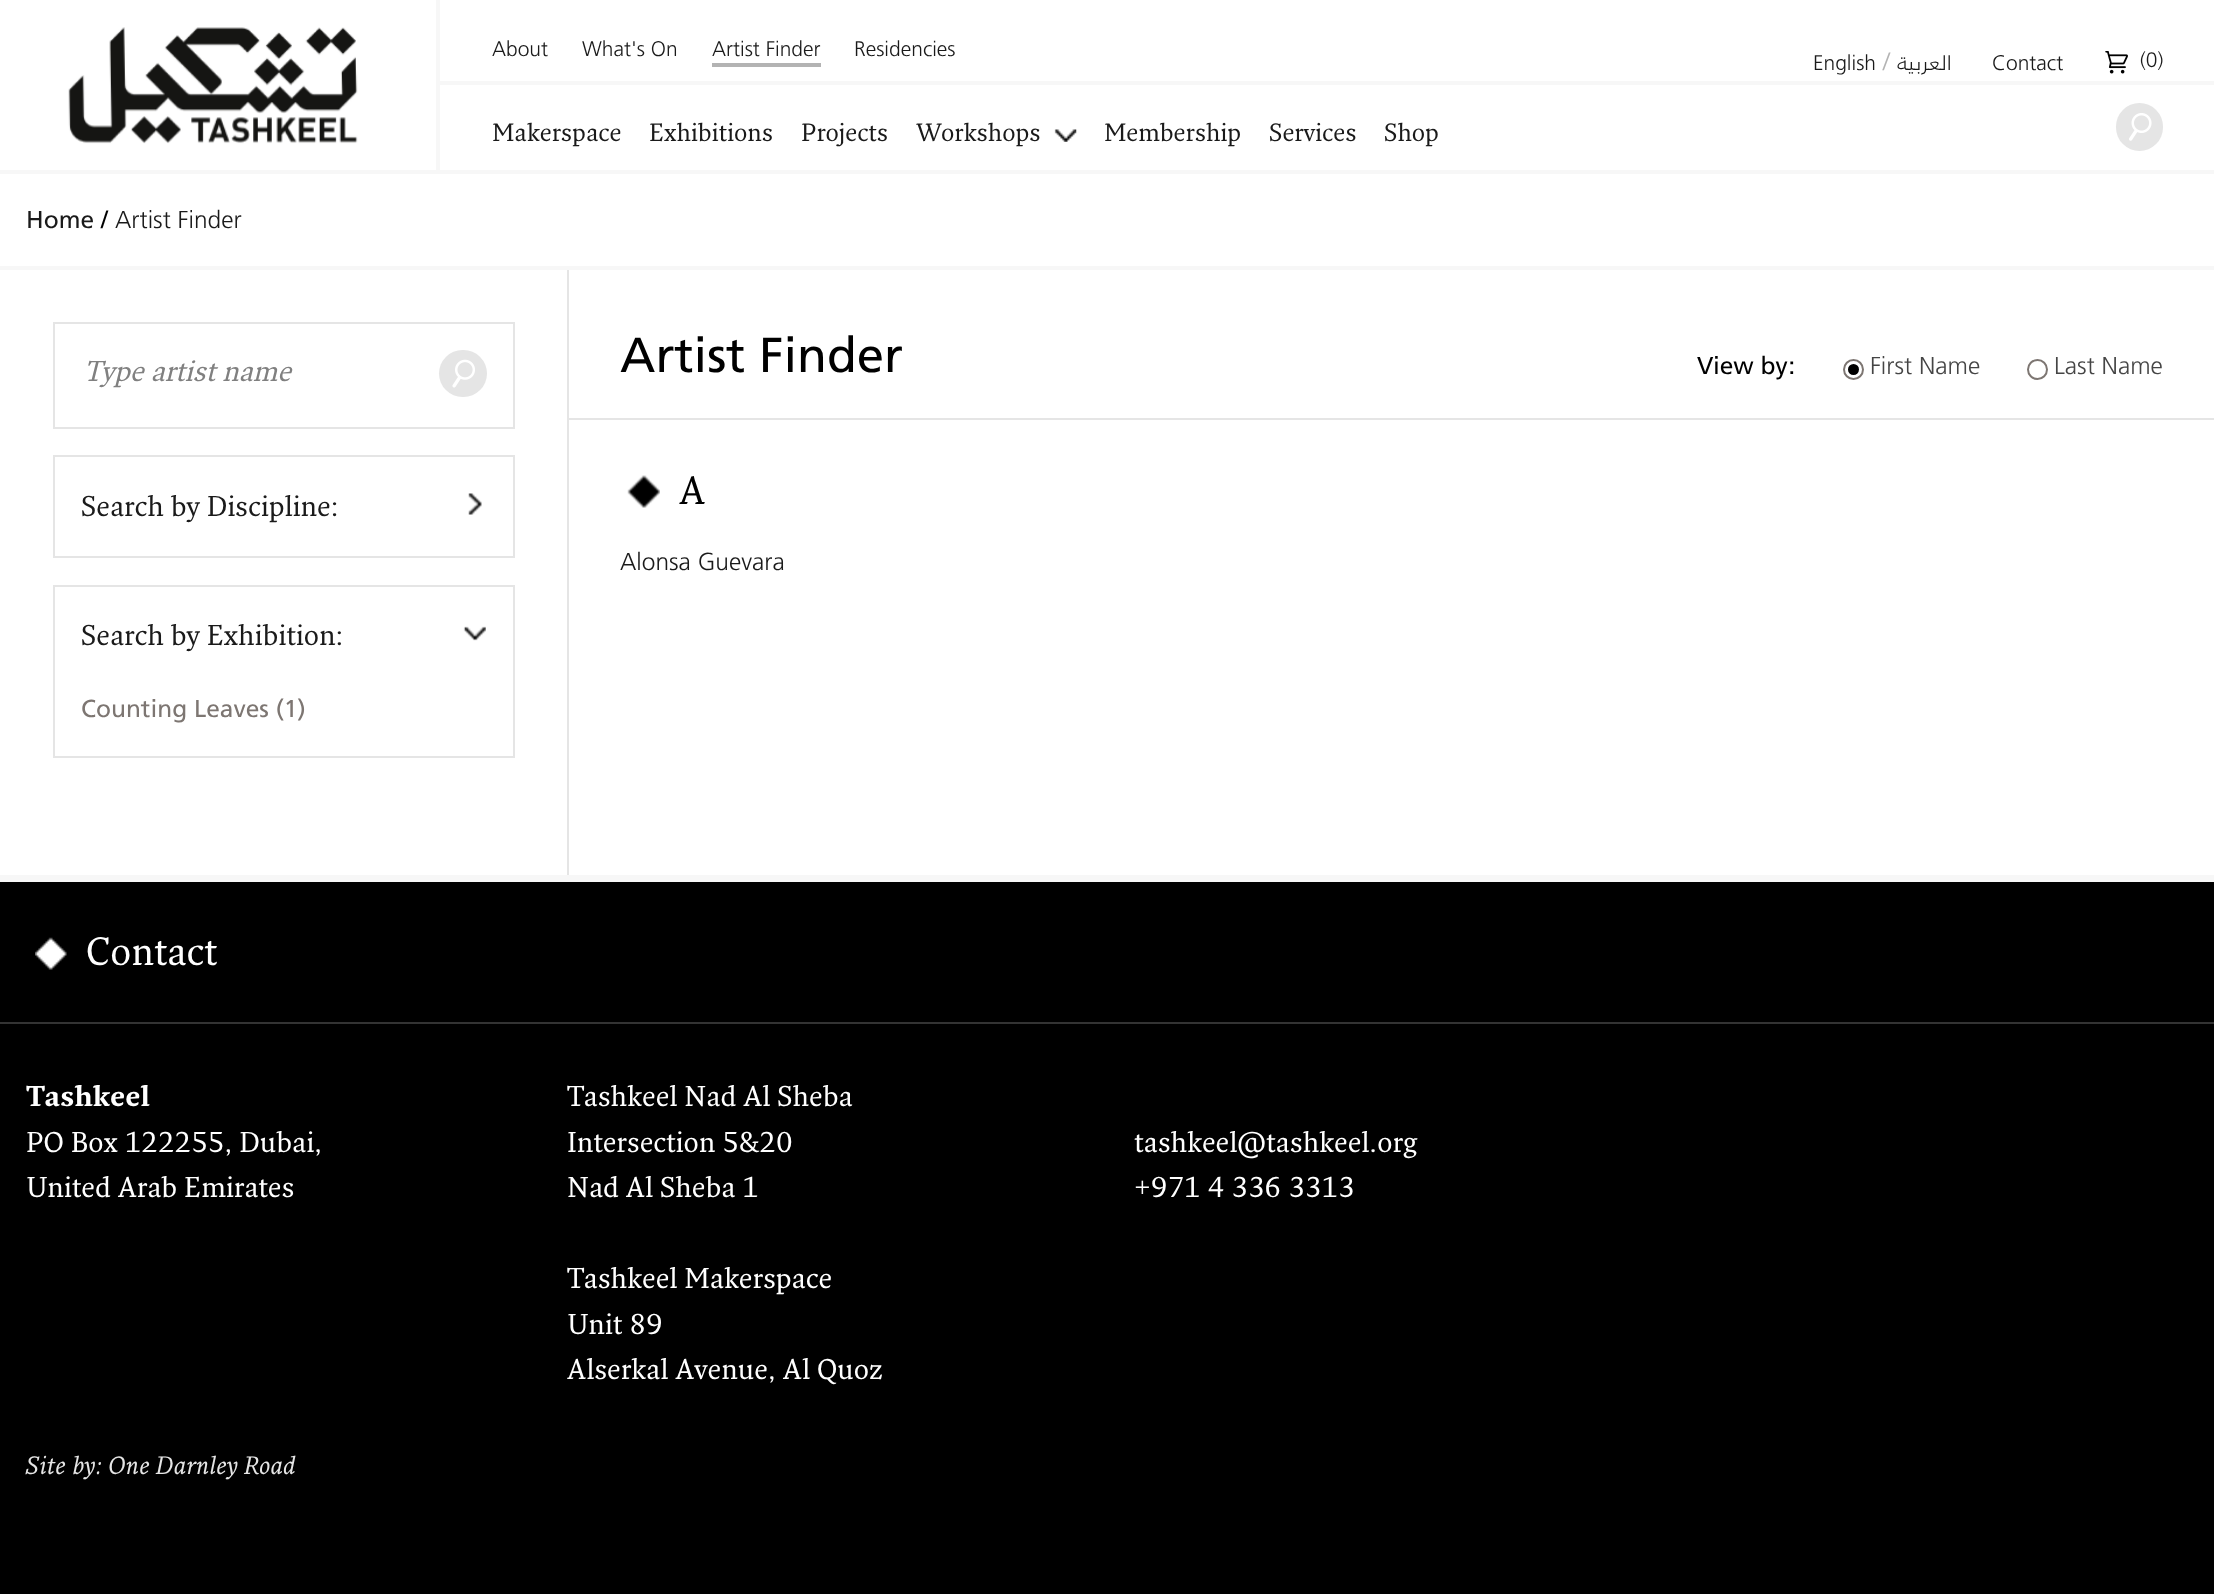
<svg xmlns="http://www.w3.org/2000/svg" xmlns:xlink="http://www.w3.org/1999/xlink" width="2214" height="1594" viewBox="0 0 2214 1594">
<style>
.cls-1{font:300 21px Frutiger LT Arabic;fill:#1a1a1a}
.cls-2{font:300 24.5px Frutiger LT Arabic;fill:#b3b3b3}
.cls-3{font:300 21px Frutiger LT Arabic;direction:rtl;fill:#1a1a1a}
.cls-4{font:24.5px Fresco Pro;fill:#1a1a1a}
.cls-5{font:24.5px Frutiger LT Arabic;fill:#1a1a1a}
.cls-6{font:24.5px Frutiger LT Arabic;fill:#000000}
.cls-7{font:300 24.5px Frutiger LT Arabic;fill:#1a1a1a}
.cls-8{font:italic 28px 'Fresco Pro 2';fill:#808080}
.cls-9{font:28px Fresco Pro;fill:#1a1a1a}
.cls-10{font:24.5px Frutiger LT Arabic;fill:#7d7672}
.cls-11{font:49px Frutiger LT Arabic;fill:#000000}
.cls-12{font:300 24.5px Frutiger LT Arabic;fill:#454545}
.cls-13{font:38.5px Fresco Pro;fill:#000000}
.cls-14{font:38.5px Fresco Pro;fill:#ffffff}
.cls-15{font:bold 28px Fresco Pro;fill:#ffffff}
.cls-16{font:28px Fresco Pro;fill:#ffffff}
.cls-17{font:italic 24.5px Fresco Pro;fill:#e5e5e5}
</style>
<rect width="100%" height="100%" fill="#f7f7f7"/>
<image xlink:href="image0.png" x="0" y="266" width="2204" height="4"/>
<rect fill="#ffffff" x="0" y="0" width="2214" height="170"/>
<image xlink:href="image1.png" x="68" y="27" width="290" height="117"/>
<rect fill="#f7f7f7" x="436" y="0" width="4" height="170"/>
<rect fill="#f7f7f7" x="439" y="81" width="1775" height="4"/>
<rect fill="#b3b3b3" x="712" y="63" width="109" height="4"/>
<image xlink:href="image2.png" x="2105" y="51" width="23" height="23"/>
<image xlink:href="image3.png" x="1054" y="129" width="23" height="13"/>
<rect fill="#e5e5e5" x="2116" y="103" width="47" height="48" rx="23.5"/>
<image xlink:href="image4.png" x="2129" y="113" width="23" height="28"/>
<rect fill="#ffffff" x="0" y="174" width="2214" height="92"/>
<rect fill="#ffffff" x="0" y="270" width="2214" height="605"/>
<rect fill="#e5e5e5" x="567" y="418" width="1647" height="2"/>
<rect fill="#e5e5e5" x="567" y="270" width="2" height="605"/>
<rect fill="none" stroke="#e5e5e5" stroke-width="2" x="54" y="323" width="460" height="105"/>
<rect fill="#e5e5e5" x="439" y="350" width="48" height="47" rx="23.5"/>
<image xlink:href="image5.png" x="452" y="359" width="23" height="29"/>
<rect fill="none" stroke="#e5e5e5" stroke-width="2" x="54" y="456" width="460" height="101"/>
<image xlink:href="image6.png" x="468" y="493" width="14" height="22"/>
<rect fill="none" stroke="#e5e5e5" stroke-width="2" x="54" y="586" width="460" height="171"/>
<image xlink:href="image7.png" x="463" y="626" width="23" height="15"/>
<circle fill="none" stroke="#7d7672" stroke-width="2" cx="1853.5" cy="369.5" r="9.5"/>
<circle fill="#000000" cx="1853.5" cy="369.5" r="5.5"/>
<circle fill="none" stroke="#7d7672" stroke-width="2" cx="2037.5" cy="369.5" r="9.5"/>
<image xlink:href="image8.png" x="627" y="475" width="33" height="33"/>
<rect fill="#000000" x="0" y="882" width="2214" height="712"/>
<rect fill="#333333" x="0" y="1022" width="2214" height="2"/>
<image xlink:href="image9.png" x="35" y="937" width="32" height="33"/>
<text class="cls-1" x="492" y="56">About</text>
<text class="cls-1" x="582" y="56">What's On</text>
<text class="cls-1" x="712" y="56">Artist Finder</text>
<text class="cls-1" x="854" y="56">Residencies</text>
<text class="cls-1" x="1813" y="70">English</text>
<text class="cls-2" x="1883" y="70">/</text>
<text class="cls-3" x="1952" y="70">العربية</text>
<text class="cls-1" x="1992" y="70">Contact</text>
<text class="cls-1" x="2140" y="67">(0)</text>
<text class="cls-4" x="492" y="141">Makerspace</text>
<text class="cls-4" x="649" y="141">Exhibitions</text>
<text class="cls-4" x="801" y="141">Projects</text>
<text class="cls-4" x="916" y="141">Workshops</text>
<text class="cls-4" x="1104" y="141">Membership</text>
<text class="cls-4" x="1269" y="141">Services</text>
<text class="cls-4" x="1384" y="141">Shop</text>
<text class="cls-5" x="26" y="228">Home</text>
<text class="cls-6" x="101" y="228">/</text>
<text class="cls-7" x="115" y="228">Artist Finder</text>
<text class="cls-8" x="84" y="381">Type artist name</text>
<text class="cls-9" x="81" y="516">Search by Discipline:</text>
<text class="cls-9" x="81" y="645">Search by Exhibition:</text>
<text class="cls-10" x="81" y="717">Counting Leaves (1)</text>
<text class="cls-11" x="620" y="372">Artist Finder</text>
<text class="cls-6" x="1697" y="374">View by:</text>
<text class="cls-12" x="1870" y="374">First Name</text>
<text class="cls-12" x="2054" y="374">Last Name</text>
<text class="cls-13" x="679" y="504">A</text>
<text class="cls-7" x="620" y="570">Alonsa Guevara</text>
<text class="cls-14" x="86" y="965">Contact</text>
<text class="cls-15" x="26" y="1106">Tashkeel</text>
<text class="cls-16"><tspan x="26" y="1152">PO Box 122255, Dubai,</tspan><tspan x="26" y="1197">United Arab Emirates</tspan></text>
<text class="cls-16"><tspan x="567" y="1106">Tashkeel Nad Al Sheba</tspan><tspan x="567" y="1152">Intersection 5&amp;20</tspan><tspan x="567" y="1197">Nad Al Sheba 1</tspan></text>
<text class="cls-16"><tspan x="567" y="1288">Tashkeel Makerspace</tspan><tspan x="567" y="1334">Unit 89</tspan><tspan x="567" y="1379">Alserkal Avenue, Al Quoz</tspan></text>
<text class="cls-16"><tspan x="1134" y="1152">tashkeel@tashkeel.org</tspan><tspan x="1134" y="1197">+971 4 336 3313</tspan></text>
<text class="cls-17" x="26" y="1474">Site by: One Darnley Road</text>
</svg>
